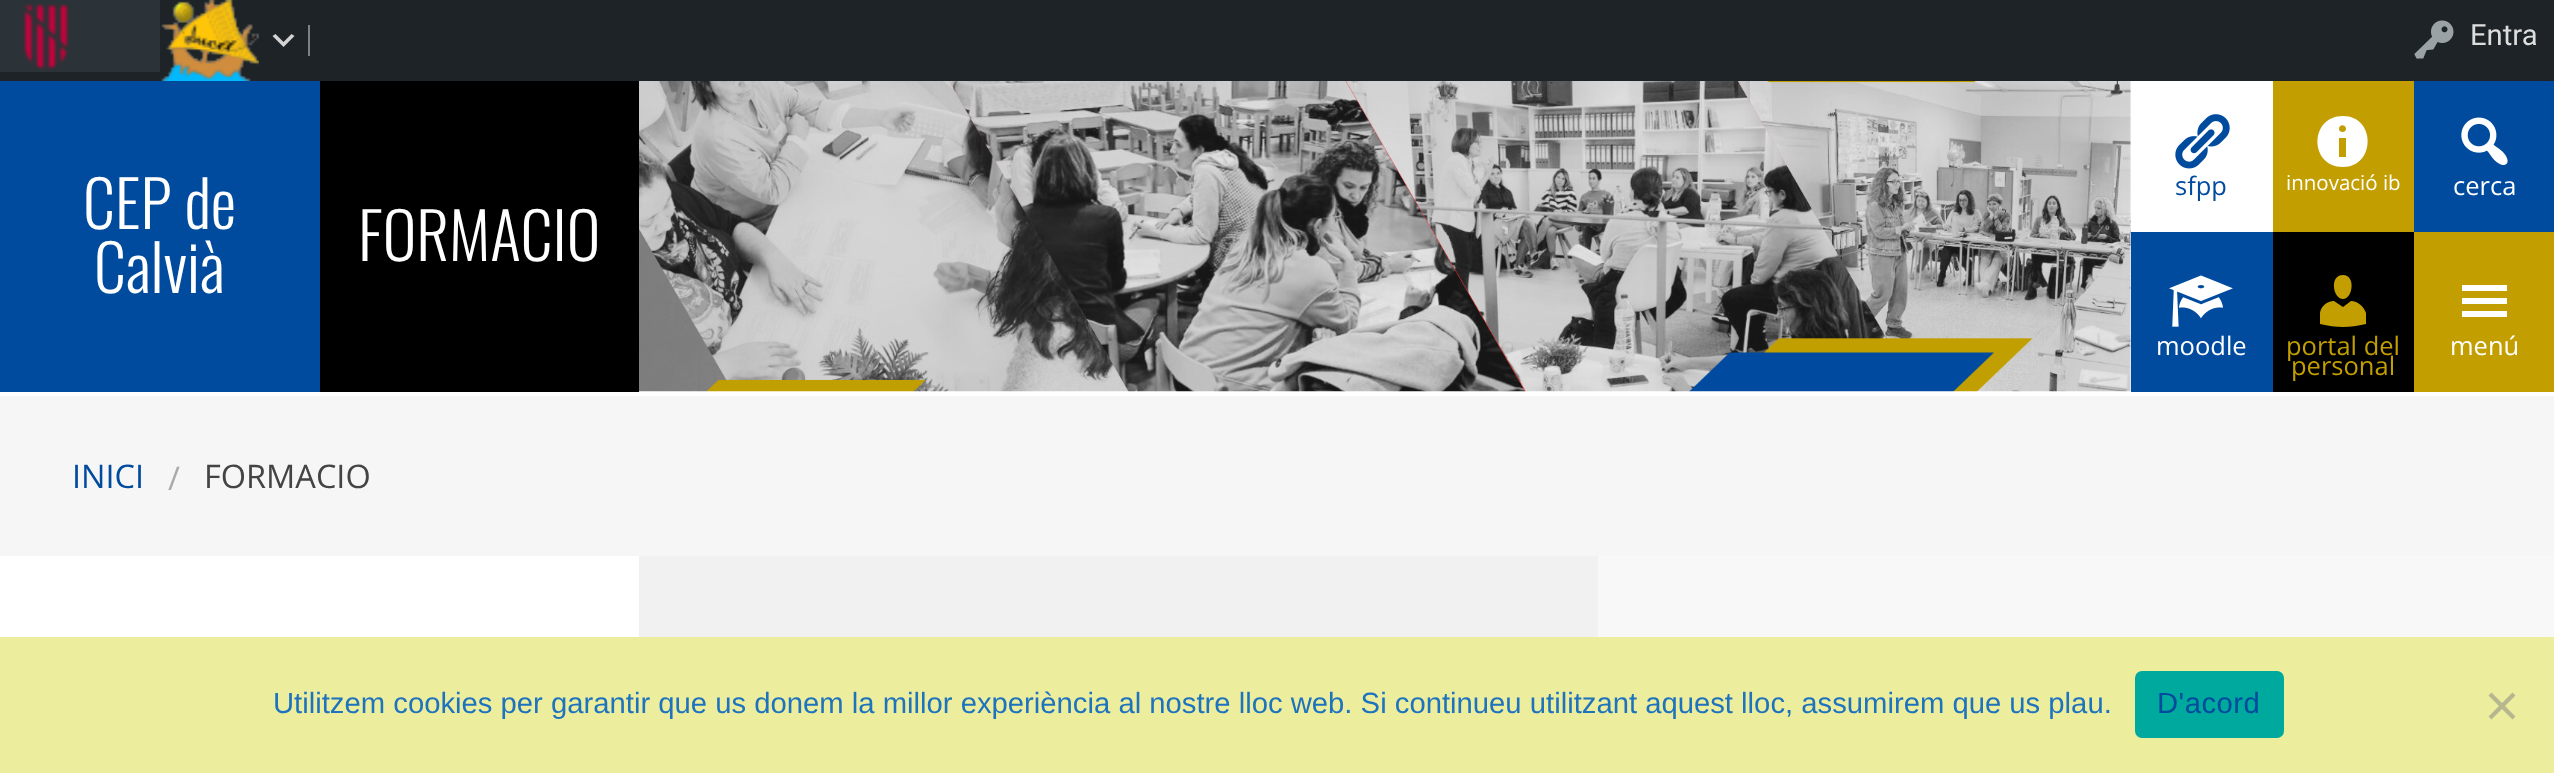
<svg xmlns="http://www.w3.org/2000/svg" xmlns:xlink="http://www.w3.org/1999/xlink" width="2554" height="773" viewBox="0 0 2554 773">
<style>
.cls-1{font:29.25px Roboto;fill:#dddddd}
.cls-2{font:300 64px Oswald;fill:#ffffff}
.cls-3{font:25.5px Open Sans;fill:#004b9e}
.cls-4{font:20.5px Open Sans;fill:#ffffff}
.cls-5{font:25.5px Open Sans;fill:#ffffff}
.cls-6{font:25.5px Open Sans;fill:#c29e00}
.cls-7{font:32.5px Open Sans;fill:#004b9e}
.cls-8{font:32.5px Open Sans;fill:#aaaaaa}
.cls-9{font:32.5px Open Sans;fill:#444444}
.cls-10{font:29.25px Liberation Sans;fill:#1e73be}
.cls-11{font:29.25px Liberation Sans;letter-spacing:0.5px;fill:#004b9e}
</style>
<rect width="100%" height="100%" fill="#ffffff"/>
<rect fill="#1d2327" x="0" y="0" width="2554" height="81"/>
<rect fill="#2c3338" x="0" y="0" width="160" height="72"/>
<image xlink:href="image0.png" x="23" y="4" width="46" height="66"/>
<image xlink:href="image1.png" x="161" y="0" width="98" height="81"/>
<rect fill="#808080" x="308" y="25" width="2" height="31"/>
<path fill="#d3d3d3" d="M275.5 34L283.5 42L291.5 34L294.5 36L283.5 47L272.5 36Z"/>
<image xlink:href="image2.png" x="2414" y="20" width="40" height="39"/>
<rect fill="#004b9e" x="0" y="81" width="320" height="311"/>
<rect fill="#000000" x="320" y="81" width="319" height="311"/>
<image xlink:href="image3.png" x="639" y="81" width="1492" height="311"/>
<image xlink:href="image4.png" x="2175" y="114" width="55" height="55"/>
<rect fill="#c29e00" x="2273" y="81" width="141" height="151"/>
<path fill="#ffffff" d="M2343 116C2376 116 2376 167 2343 167C2309 167 2309 116 2343 116ZM2346 129C2346 124 2339 124 2339 129C2339 133 2346 133 2346 129ZM2346 157V138H2339V157Z"/>
<rect fill="#004b9e" x="2414" y="81" width="140" height="151"/>
<image xlink:href="image5.png" x="2461" y="117" width="47" height="48"/>
<rect fill="#004b9e" x="2131" y="232" width="142" height="160"/>
<image xlink:href="image6.png" x="2169" y="275" width="64" height="52"/>
<rect fill="#000000" x="2273" y="232" width="141" height="160"/>
<path fill="#c29e00" d="M2343 299C2333 299 2329 275 2343 275C2356 275 2353 299 2343 299ZM2343 307L2351 301C2358 301 2364 307 2366 313V324C2349 328 2337 328 2320 324V313C2321 306 2327 301 2334 301Z"/>
<rect fill="#c29e00" x="2414" y="232" width="140" height="160"/>
<path fill="#ffffff" d="M2462 317H2507V311H2462ZM2462 285V291H2507V285ZM2462 304H2507V298H2462Z"/>
<rect fill="#f6f6f6" x="0" y="396" width="2554" height="160"/>
<rect fill="#f1f1f1" x="639" y="556" width="959" height="81"/>
<rect fill="#f8f8f8" x="1598" y="556" width="956" height="81"/>
<rect fill="#eded9e" x="0" y="637" width="2554" height="136"/>
<rect fill="#00a99d" x="2135" y="671" width="149" height="67" rx="7"/>
<path fill="#b7b78f" d="M2512.5 692.5L2515.5 695.5L2491.5 719.5L2488.5 716.5Z"/>
<path fill="#b7b78f" d="M2488.5 695.5L2491.5 692.5L2515.5 716.5L2512.5 719.5Z"/>
<text class="cls-1" x="2470" y="45">Entra</text>
<text class="cls-2" x="83" y="229">CEP de</text>
<text class="cls-2" x="94" y="293">Calvià</text>
<text class="cls-2" x="358" y="261">FORMACIO</text>
<text class="cls-3" x="2175" y="195">sfpp</text>
<text class="cls-4" x="2286" y="190">innovació ib</text>
<text class="cls-5" x="2453" y="195">cerca</text>
<text class="cls-5" x="2156" y="355">moodle</text>
<text class="cls-6" x="2286" y="355">portal del</text>
<text class="cls-6" x="2291" y="375">personal</text>
<text class="cls-5" x="2450" y="355">menú</text>
<text class="cls-7" x="72" y="488">INICI</text>
<text class="cls-8" x="168" y="490">/</text>
<text class="cls-9" x="204" y="488">FORMACIO</text>
<text class="cls-10" x="273" y="713">Utilitzem cookies per garantir que us donem la millor experiència al nostre lloc web. Si continueu utilitzant aquest lloc, assumirem que us plau.</text>
<text class="cls-11" x="2157" y="713">D'acord</text>
</svg>
